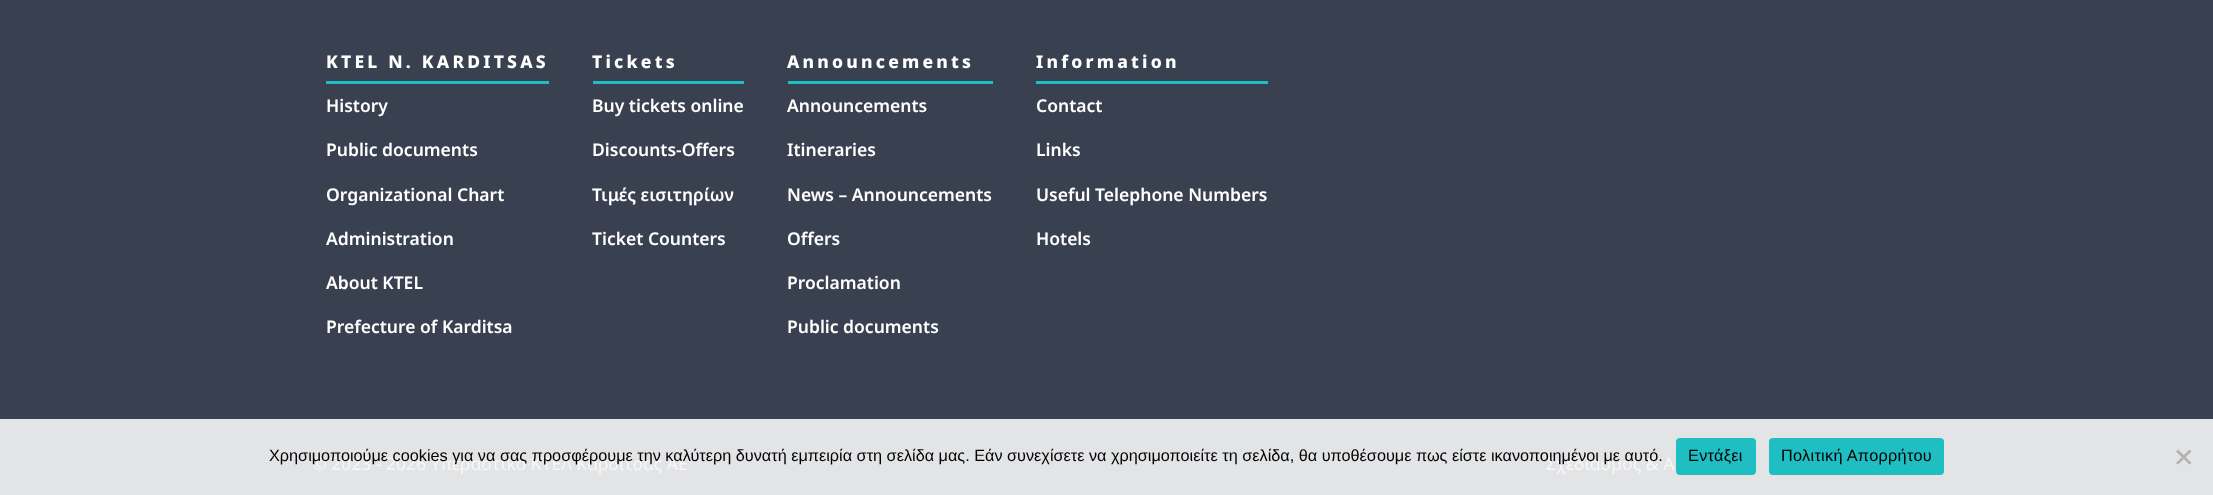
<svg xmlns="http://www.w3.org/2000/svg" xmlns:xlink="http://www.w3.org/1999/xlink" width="2213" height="495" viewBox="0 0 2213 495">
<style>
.cls-1{font:800 17.5px Noto Sans;letter-spacing:3.2px;fill:#ffffff}
.cls-2{font:600 17.5px Noto Sans;fill:#ffffff}
.cls-3{font:17.5px Noto Sans;fill:#f8f7f7}
.cls-4{font:16.25px Liberation Sans;fill:#020000}
.cls-5{font:16.25px Liberation Sans;letter-spacing:0.3px;fill:#020000}
</style>
<rect width="100%" height="100%" fill="#39404f"/>
<rect fill="#e3e4e6" x="0" y="419" width="2213" height="76"/>
<rect fill="#1fbec2" x="326" y="81" width="223" height="3"/>
<rect fill="#1fbec2" x="593" y="81" width="151" height="3"/>
<rect fill="#1fbec2" x="788" y="81" width="205" height="3"/>
<rect fill="#1fbec2" x="1036" y="81" width="232" height="3"/>
<rect fill="#1fbec2" x="1676" y="438" width="80" height="37" rx="4"/>
<rect fill="#1fbec2" x="1769" y="438" width="175" height="37" rx="4"/>
<path fill="#b2b2b3" d="M2189.5 449.5L2191.5 451.5L2178 464.5L2176 463Z"/>
<path fill="#b2b2b3" d="M2176 451.5L2178 449.5L2191.5 463L2189.5 464.5Z"/>
<text class="cls-1" x="326" y="68">KTEL N. KARDITSAS</text>
<text class="cls-2" x="326" y="112">History</text>
<text class="cls-2" x="326" y="156">Public documents</text>
<text class="cls-2" x="326" y="201">Organizational Chart</text>
<text class="cls-2" x="326" y="245">Administration</text>
<text class="cls-2" x="326" y="289">About KTEL</text>
<text class="cls-2" x="326" y="333">Prefecture of Karditsa</text>
<text class="cls-1" x="592" y="68">Tickets</text>
<text class="cls-2" x="592" y="112">Buy tickets online</text>
<text class="cls-2" x="592" y="156">Discounts-Offers</text>
<text class="cls-2" x="592" y="201">Τιμές εισιτηρίων</text>
<text class="cls-2" x="592" y="245">Ticket Counters</text>
<text class="cls-1" x="787" y="68">Announcements</text>
<text class="cls-2" x="787" y="112">Announcements</text>
<text class="cls-2" x="787" y="156">Itineraries</text>
<text class="cls-2" x="787" y="201">News – Announcements</text>
<text class="cls-2" x="787" y="245">Offers</text>
<text class="cls-2" x="787" y="289">Proclamation</text>
<text class="cls-2" x="787" y="333">Public documents</text>
<text class="cls-1" x="1036" y="68">Information</text>
<text class="cls-2" x="1036" y="112">Contact</text>
<text class="cls-2" x="1036" y="156">Links</text>
<text class="cls-2" x="1036" y="201">Useful Telephone Numbers</text>
<text class="cls-2" x="1036" y="245">Hotels</text>
<text class="cls-3" x="312" y="470">© 2023 - 2026 Υπεραστικό ΚΤΕΛ Καρδίτσας ΑΕ</text>
<text class="cls-3" x="1546" y="470">Σχεδιασμός &amp; Α</text>
<text class="cls-4" x="269" y="461">Χρησιμοποιούμε cookies για να σας προσφέρουμε την καλύτερη δυνατή εμπειρία στη σελίδα μας. Εάν συνεχίσετε να χρησιμοποιείτε τη σελίδα, θα υποθέσουμε πως είστε ικανοποιημένοι με αυτό.</text>
<text class="cls-5" x="1688" y="461">Εντάξει</text>
<text class="cls-5" x="1781" y="461">Πολιτική Απορρήτου</text>
</svg>
